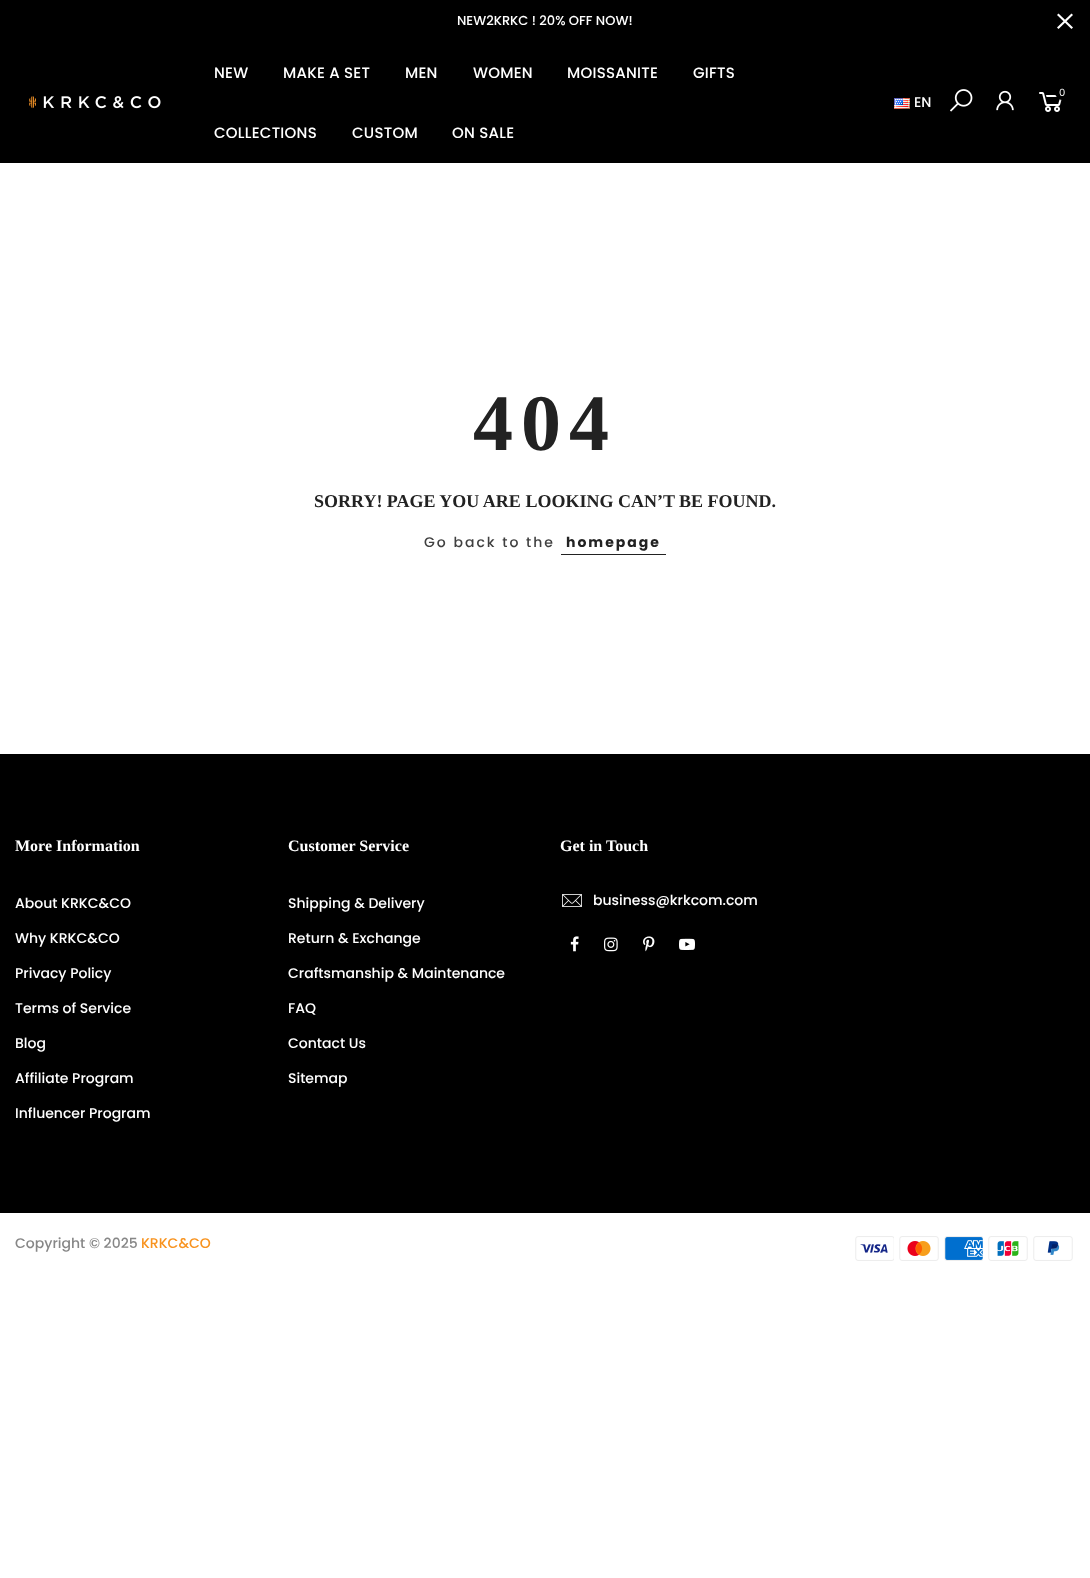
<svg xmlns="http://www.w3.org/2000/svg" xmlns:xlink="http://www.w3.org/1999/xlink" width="1090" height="1578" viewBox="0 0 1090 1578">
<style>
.cls-1{font:500 13px Poppins;fill:#ffffff}
.cls-2{font:500 15px Poppins;letter-spacing:0.25px;fill:#ffffff}
.cls-3{font:500 14px Poppins;fill:#ffffff}
.cls-4{font:10px Poppins;fill:#ffffff}
.cls-5{font:bold 80px Liberation Serif;letter-spacing:8px;fill:#222222}
.cls-6{font:bold 18px Liberation Serif;fill:#222222}
.cls-7{font:500 14px Poppins;letter-spacing:2px;fill:#404040}
.cls-8{font:bold 14px Poppins;letter-spacing:2px;fill:#222222}
.cls-9{font:bold 16px Liberation Serif;fill:#ffffff}
.cls-10{font:500 14px Poppins;fill:#878787}
.cls-11{font:500 14px Poppins;fill:#f8931f}
</style>
<rect width="100%" height="100%" fill="#ffffff"/>
<rect fill="#000000" x="0" y="0" width="1090" height="163"/>
<path fill="#ffffff" d="M1058.5 13.5L1073 27.5L1071.5 29L1057 15Z"/>
<path fill="#ffffff" d="M1057 27.5L1071.5 13.5L1073 15L1058.5 29Z"/>
<image xlink:href="image0.png" x="29" y="96" width="132" height="13"/>
<image xlink:href="image1.png" x="894" y="98" width="16" height="11"/>
<image xlink:href="image2.png" x="950" y="89" width="23" height="23"/>
<image xlink:href="image3.png" x="996" y="90" width="18" height="21"/>
<image xlink:href="image4.png" x="1039" y="92" width="23" height="20"/>
<rect fill="#000000" fill-opacity="0.3" filter="blur(1.5px)" x="1056" y="86" width="15" height="15" rx="7.5"/>
<circle fill="#000000" cx="1062.5" cy="92.5" r="7.5"/>
<rect fill="#222222" x="561" y="554" width="105" height="1"/>
<rect fill="#000000" x="0" y="754" width="1090" height="459"/>
<image xlink:href="image5.png" x="562" y="894" width="20" height="13"/>
<image xlink:href="image6.png" x="570" y="936" width="9" height="16"/>
<image xlink:href="image7.png" x="604" y="937" width="14" height="15"/>
<image xlink:href="image8.png" x="643" y="936" width="12" height="16"/>
<image xlink:href="image9.png" x="679" y="938" width="16" height="12"/>
<image xlink:href="image10.png" x="855" y="1236" width="39" height="25"/>
<image xlink:href="image11.png" x="899" y="1236" width="40" height="25"/>
<image xlink:href="image12.png" x="944" y="1236" width="39" height="25"/>
<image xlink:href="image13.png" x="988" y="1236" width="40" height="25"/>
<image xlink:href="image14.png" x="1033" y="1236" width="40" height="25"/>
<text class="cls-1" x="457" y="25">NEW2KRKC ! 20% OFF NOW!</text>
<text class="cls-2" x="214" y="78">NEW</text>
<text class="cls-2" x="283" y="78">MAKE A SET</text>
<text class="cls-2" x="405" y="78">MEN</text>
<text class="cls-2" x="473" y="78">WOMEN</text>
<text class="cls-2" x="567" y="78">MOISSANITE</text>
<text class="cls-2" x="693" y="78">GIFTS</text>
<text class="cls-2" x="214" y="138">COLLECTIONS</text>
<text class="cls-2" x="352" y="138">CUSTOM</text>
<text class="cls-2" x="452" y="138">ON SALE</text>
<text class="cls-3" x="914" y="107">EN</text>
<text class="cls-4" x="1059" y="96">0</text>
<text class="cls-5" x="473" y="450">404</text>
<text class="cls-6" x="314" y="507">SORRY! PAGE YOU ARE LOOKING CAN’T BE FOUND.</text>
<text class="cls-7" x="424" y="547">Go back to the</text>
<text class="cls-8" x="566" y="547">homepage</text>
<text class="cls-9" x="15" y="851">More Information</text>
<text class="cls-3" x="15" y="908">About KRKC&amp;CO</text>
<text class="cls-3" x="15" y="943">Why KRKC&amp;CO</text>
<text class="cls-3" x="15" y="978">Privacy Policy</text>
<text class="cls-3" x="15" y="1013">Terms of Service</text>
<text class="cls-3" x="15" y="1048">Blog</text>
<text class="cls-3" x="15" y="1083">Affiliate Program</text>
<text class="cls-3" x="15" y="1118">Influencer Program</text>
<text class="cls-9" x="288" y="851">Customer Service</text>
<text class="cls-3" x="288" y="908">Shipping &amp; Delivery</text>
<text class="cls-3" x="288" y="943">Return &amp; Exchange</text>
<text class="cls-3" x="288" y="978">Craftsmanship &amp; Maintenance</text>
<text class="cls-3" x="288" y="1013">FAQ</text>
<text class="cls-3" x="288" y="1048">Contact Us</text>
<text class="cls-3" x="288" y="1083">Sitemap</text>
<text class="cls-9" x="560" y="851">Get in Touch</text>
<text class="cls-3" x="593" y="905">business@krkcom.com</text>
<text class="cls-10" x="15" y="1248">Copyright © 2025</text>
<text class="cls-11" x="141" y="1248">KRKC&amp;CO</text>
</svg>
